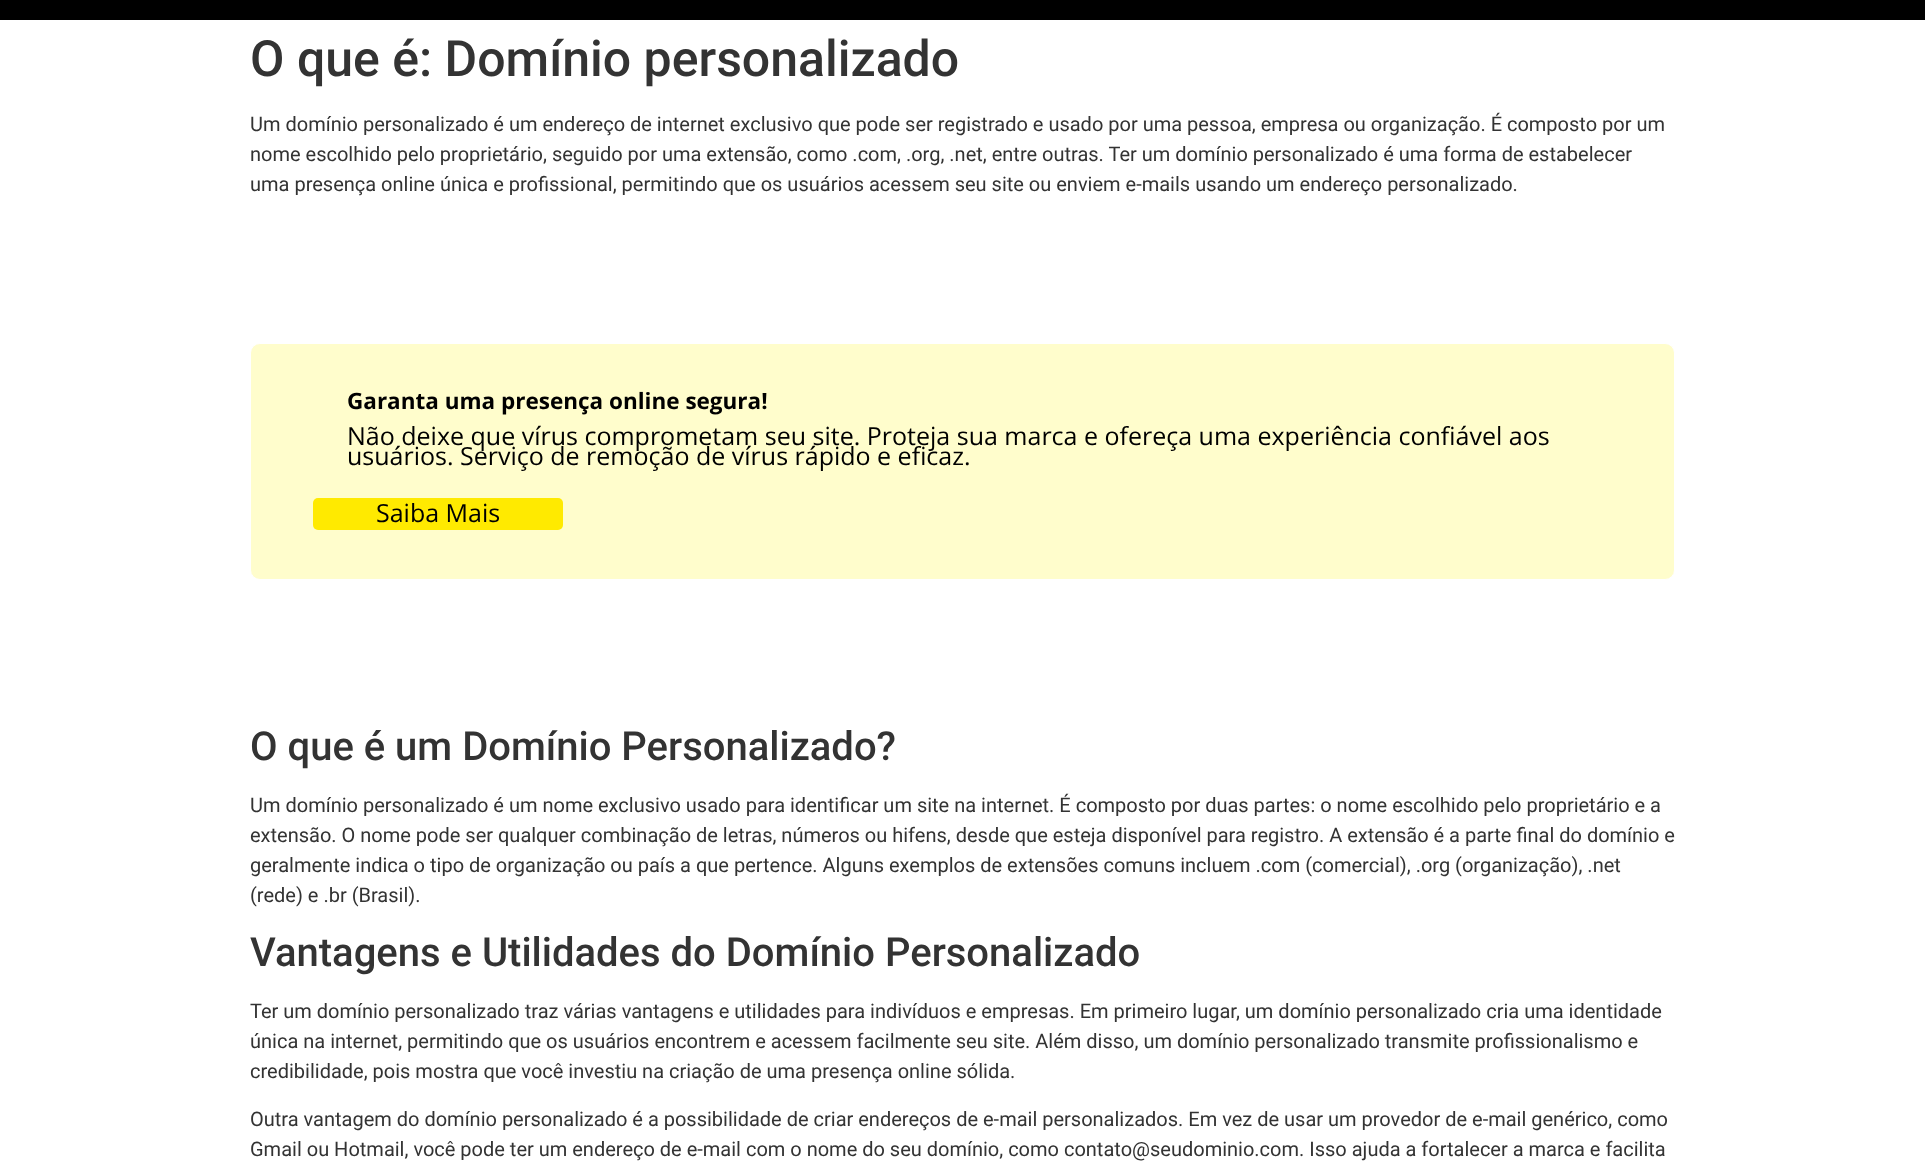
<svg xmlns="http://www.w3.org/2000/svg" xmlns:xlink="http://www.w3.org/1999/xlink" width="1925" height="1166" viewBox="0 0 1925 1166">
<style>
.cls-1{font:500 50px Roboto;fill:#333333}
.cls-2{font:20px Roboto;fill:#333333}
.cls-3{font:bold 22.5px Open Sans;fill:#000000}
.cls-4{font:25px Open Sans;fill:#000000}
.cls-5{font:500 40px Roboto;fill:#333333}
</style>
<rect width="100%" height="100%" fill="#ffffff"/>
<rect fill="#000000" x="0" y="0" width="1925" height="20"/>
<rect fill="#fffdcc" stroke="#ffffff" x="250.5" y="343.5" width="1424" height="236" rx="9.5"/>
<rect fill="#ffea00" x="313" y="498" width="250" height="32" rx="5"/>
<text class="cls-1" x="250" y="76">O que é: Domínio personalizado</text>
<text class="cls-2"><tspan x="250" y="131">Um domínio personalizado é um endereço de internet exclusivo que pode ser registrado e usado por uma pessoa, empresa ou organização. É composto por um</tspan><tspan x="250" y="161">nome escolhido pelo proprietário, seguido por uma extensão, como .com, .org, .net, entre outras. Ter um domínio personalizado é uma forma de estabelecer</tspan><tspan x="250" y="191">uma presença online única e profissional, permitindo que os usuários acessem seu site ou enviem e-mails usando um endereço personalizado.</tspan></text>
<text class="cls-3" x="347" y="409">Garanta uma presença online segura!</text>
<text class="cls-4"><tspan x="347" y="445">Não deixe que vírus comprometam seu site. Proteja sua marca e ofereça uma experiência confiável aos</tspan><tspan x="347" y="465">usuários. Serviço de remoção de vírus rápido e eficaz.</tspan></text>
<text class="cls-4" x="376" y="522">Saiba Mais</text>
<text class="cls-5" x="250" y="760">O que é um Domínio Personalizado?</text>
<text class="cls-2"><tspan x="250" y="812">Um domínio personalizado é um nome exclusivo usado para identificar um site na internet. É composto por duas partes: o nome escolhido pelo proprietário e a</tspan><tspan x="250" y="842">extensão. O nome pode ser qualquer combinação de letras, números ou hifens, desde que esteja disponível para registro. A extensão é a parte final do domínio e</tspan><tspan x="250" y="872">geralmente indica o tipo de organização ou país a que pertence. Alguns exemplos de extensões comuns incluem .com (comercial), .org (organização), .net</tspan><tspan x="250" y="902">(rede) e .br (Brasil).</tspan></text>
<text class="cls-5" x="250" y="966">Vantagens e Utilidades do Domínio Personalizado</text>
<text class="cls-2"><tspan x="250" y="1018">Ter um domínio personalizado traz várias vantagens e utilidades para indivíduos e empresas. Em primeiro lugar, um domínio personalizado cria uma identidade</tspan><tspan x="250" y="1048">única na internet, permitindo que os usuários encontrem e acessem facilmente seu site. Além disso, um domínio personalizado transmite profissionalismo e</tspan><tspan x="250" y="1078">credibilidade, pois mostra que você investiu na criação de uma presença online sólida.</tspan></text>
<text class="cls-2"><tspan x="250" y="1126">Outra vantagem do domínio personalizado é a possibilidade de criar endereços de e-mail personalizados. Em vez de usar um provedor de e-mail genérico, como</tspan><tspan x="250" y="1156">Gmail ou Hotmail, você pode ter um endereço de e-mail com o nome do seu domínio, como contato@seudominio.com. Isso ajuda a fortalecer a marca e facilita</tspan></text>
</svg>
